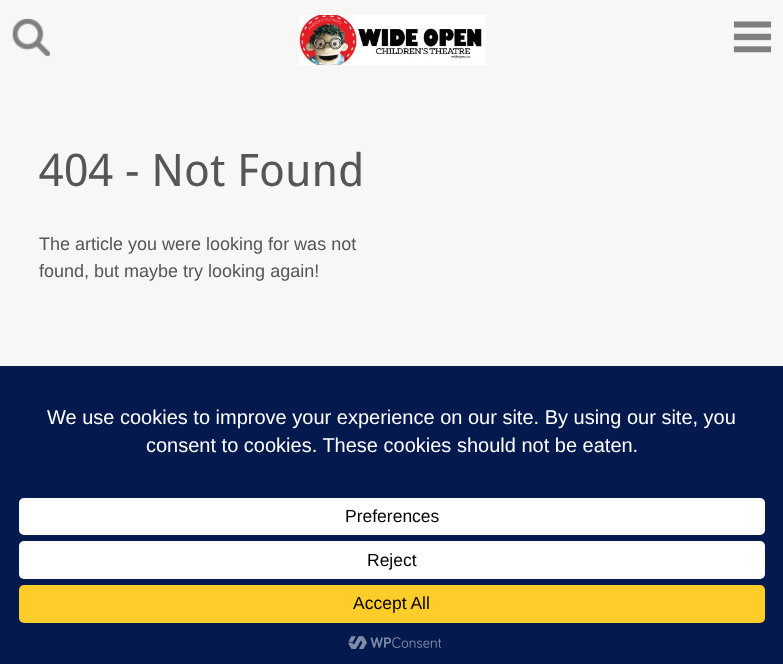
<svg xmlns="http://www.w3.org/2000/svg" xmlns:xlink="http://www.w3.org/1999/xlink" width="783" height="664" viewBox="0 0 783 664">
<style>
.cls-1{font:45px Droid Sans;fill:#565656}
.cls-2{font:18px Liberation Sans;fill:#565656}
.cls-3{font:20px Liberation Sans;fill:#ffffff}
.cls-4{font:17.5px Liberation Sans;fill:#000000}
</style>
<rect width="100%" height="100%" fill="#f8f7f6"/>
<image xlink:href="image0.png" x="12" y="18" width="38" height="39"/>
<image xlink:href="image1.png" x="733" y="21" width="39" height="32"/>
<image xlink:href="image2.png" x="299" y="15" width="187" height="50"/>
<rect fill="#04194e" x="0" y="366" width="783" height="298"/>
<rect fill="#ffffff" x="19" y="498" width="746" height="37" rx="5"/>
<rect fill="#ffffff" x="19" y="541" width="746" height="38" rx="5"/>
<rect fill="#ffcd2a" x="19" y="585" width="746" height="38" rx="5"/>
<image xlink:href="image3.png" x="348" y="636" width="94" height="13"/>
<text class="cls-1" x="39" y="186">404 - Not Found</text>
<text class="cls-2"><tspan x="39" y="250">The article you were looking for was not</tspan><tspan x="39" y="277">found, but maybe try looking again!</tspan></text>
<text class="cls-3" x="47" y="424">We use cookies to improve your experience on our site. By using our site, you</text>
<text class="cls-3" x="146" y="452">consent to cookies. These cookies should not be eaten.</text>
<text class="cls-4" x="345" y="522">Preferences</text>
<text class="cls-4" x="367" y="566">Reject</text>
<text class="cls-4" x="353" y="609">Accept All</text>
</svg>
